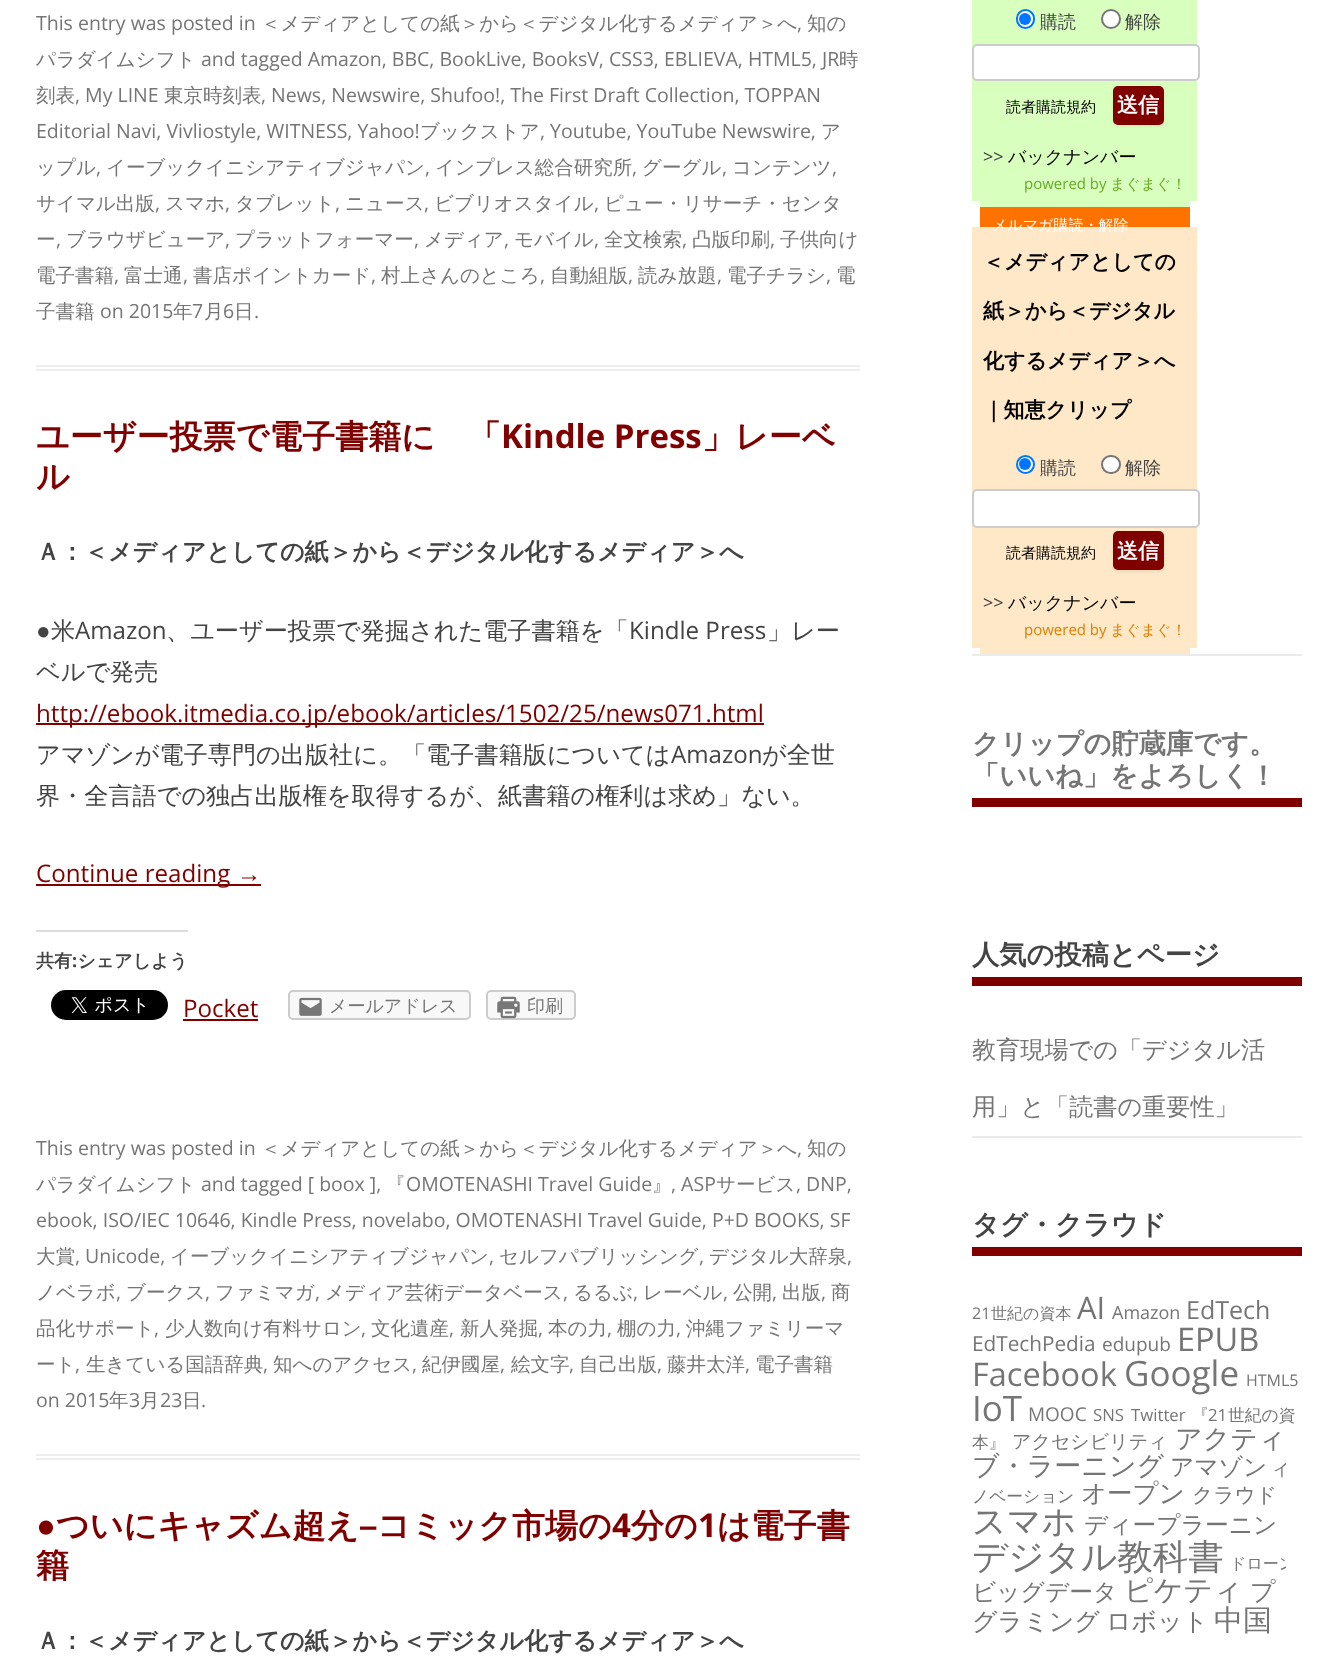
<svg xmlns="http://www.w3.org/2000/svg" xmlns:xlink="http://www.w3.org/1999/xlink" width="1337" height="1664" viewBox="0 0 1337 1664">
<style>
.cls-1{font:19.5px Open Sans;fill:#757575}
.cls-2{font:500 19.5px WenQuanYi Zen Hei;fill:#757575}
.cls-3{font:bold 33px WenQuanYi Zen Hei;fill:#800000}
.cls-4{font:bold 33px Open Sans;fill:#800000}
.cls-5{font:bold 24px WenQuanYi Zen Hei;fill:#444444}
.cls-6{font:24.15px Liberation Sans;fill:#444444}
.cls-7{font:500 24.15px WenQuanYi Zen Hei;fill:#444444}
.cls-8{font:24.15px Open Sans;fill:#444444}
.cls-9{font:24.15px Open Sans;fill:#800000}
.cls-10{font:24.15px Liberation Sans;fill:#800000}
.cls-11{font:bold 18px WenQuanYi Zen Hei;fill:#444444}
.cls-12{font:bold 18px Open Sans;fill:#444444}
.cls-13{font:500 18px WenQuanYi Zen Hei;fill:#757575}
.cls-14{font:bold 33px Liberation Sans;fill:#800000}
.cls-15{font:500 18px WenQuanYi Zen Hei;fill:#444444}
.cls-16{font:500 15px WenQuanYi Zen Hei;fill:#000000}
.cls-17{font:bold 21px WenQuanYi Zen Hei;fill:#ffffff}
.cls-18{font:18px Open Sans;fill:#444444}
.cls-19{font:500 18px WenQuanYi Zen Hei;fill:#000000}
.cls-20{font:15px Open Sans;fill:#67ac24}
.cls-21{font:500 15px WenQuanYi Zen Hei;fill:#67ac24}
.cls-22{font:500 15px WenQuanYi Zen Hei;fill:#ffffff}
.cls-23{font:bold 21px WenQuanYi Zen Hei;fill:#000000}
.cls-24{font:15px Open Sans;fill:#e07e00}
.cls-25{font:500 15px WenQuanYi Zen Hei;fill:#e07e00}
.cls-26{font:bold 27.25px WenQuanYi Zen Hei;fill:#757575}
.cls-27{font:bold 27.25px WenQuanYi Zen Hei;fill:#444444}
.cls-28{font:500 24.15px WenQuanYi Zen Hei;fill:#757575}
.cls-29{font:16px Open Sans;fill:#757575}
.cls-30{font:500 16px WenQuanYi Zen Hei;fill:#757575}
.cls-31{font:31px Open Sans;fill:#757575}
.cls-32{font:18px Open Sans;fill:#757575}
.cls-33{font:25px Open Sans;fill:#757575}
.cls-34{font:20.75px Open Sans;fill:#757575}
.cls-35{font:19px Open Sans;fill:#757575}
.cls-36{font:32.5px Open Sans;fill:#757575}
.cls-37{font:35px Open Sans;fill:#757575}
.cls-38{font:16.75px Open Sans;fill:#757575}
.cls-39{font:500 16.75px WenQuanYi Zen Hei;fill:#757575}
.cls-40{font:500 19px WenQuanYi Zen Hei;fill:#757575}
.cls-41{font:500 27px WenQuanYi Zen Hei;fill:#757575}
.cls-42{font:500 23.75px WenQuanYi Zen Hei;fill:#757575}
.cls-43{font:500 25.5px WenQuanYi Zen Hei;fill:#757575}
.cls-44{font:500 20.75px WenQuanYi Zen Hei;fill:#757575}
.cls-45{font:500 34px WenQuanYi Zen Hei;fill:#757575}
.cls-46{font:500 35.5px WenQuanYi Zen Hei;fill:#757575}
.cls-47{font:500 29px WenQuanYi Zen Hei;fill:#757575}
.cls-48{font:500 25px WenQuanYi Zen Hei;fill:#757575}
</style>
<rect width="100%" height="100%" fill="#ffffff"/>
<rect fill="#ededed" x="36" y="365" width="824" height="2"/>
<rect fill="#ededed" x="36" y="369" width="824" height="2"/>
<rect fill="#ededed" x="36" y="1454" width="824" height="2"/>
<rect fill="#ededed" x="36" y="1458" width="824" height="2"/>
<rect fill="#800000" x="36" y="723" width="728" height="2"/>
<rect fill="#800000" x="36" y="884" width="225" height="2"/>
<rect fill="#dddddd" x="36" y="930" width="152" height="2"/>
<image xlink:href="image0.png" x="51" y="990" width="117" height="30"/>
<rect fill="#800000" x="183" y="1019" width="75" height="2"/>
<rect fill="#f8f8f8" stroke="#cccccc" stroke-width="2" x="289" y="991" width="181" height="28" rx="4"/>
<image xlink:href="image1.png" x="299" y="997" width="23" height="19"/>
<rect fill="#f8f8f8" stroke="#cccccc" stroke-width="2" x="487" y="991" width="88" height="28" rx="4"/>
<image xlink:href="image2.png" x="497" y="996" width="23" height="23"/>
<rect fill="#ebebeb" x="972" y="654" width="330" height="2"/>
<rect fill="#d9ffbe" x="972" y="0" width="225" height="201"/>
<rect fill="#ffffff" stroke="#0075ff" stroke-width="2" x="1017" y="10" width="17" height="18" rx="8.5"/>
<circle fill="#0075ff" cx="1025" cy="19" r="6"/>
<circle fill="#ffffff" stroke="#767676" stroke-width="2" cx="1111" cy="19" r="9"/>
<rect fill="#ffffff" stroke="#cccccc" stroke-width="2" x="973" y="45" width="226" height="35" rx="4"/>
<rect fill="#404040" fill-opacity="0.1" filter="blur(1.5px)" x="1113" y="87" width="51" height="39" rx="5"/>
<rect fill="#800000" x="1113" y="86" width="51" height="39" rx="5"/>
<rect fill="#d9ffbe" x="980" y="201" width="210" height="6"/>
<rect fill="#ff7200" x="980" y="207" width="210" height="20"/>
<rect fill="#ffe8c7" x="972" y="227" width="225" height="421"/>
<circle fill="#ffffff" stroke="#0075ff" stroke-width="2" cx="1025.5" cy="464.5" r="8.5"/>
<circle fill="#0075ff" cx="1025" cy="464" r="6"/>
<rect fill="#ffffff" stroke="#767676" stroke-width="2" x="1102" y="456" width="18" height="17" rx="8.5"/>
<rect fill="#ffffff" stroke="#cccccc" stroke-width="2" x="973" y="490" width="226" height="37" rx="4"/>
<rect fill="#404040" fill-opacity="0.1" filter="blur(1.5px)" x="1113" y="533" width="51" height="39" rx="5"/>
<rect fill="#800000" x="1113" y="531" width="51" height="39" rx="5"/>
<rect fill="#ffe8c7" x="980" y="648" width="210" height="6"/>
<rect fill="#800000" x="972" y="798" width="330" height="9"/>
<rect fill="#800000" x="972" y="977" width="330" height="9"/>
<rect fill="#ebebeb" x="972" y="1136" width="330" height="2"/>
<rect fill="#800000" x="972" y="1247" width="330" height="9"/>
<text class="cls-1" x="36" y="30">This entry was posted in</text>
<text class="cls-2" x="261" y="30">＜メディアとしての紙＞から＜デジタル化するメディア＞へ</text>
<text class="cls-1" x="797" y="30">,</text>
<text class="cls-2" x="807" y="30">知の</text>
<text class="cls-2" x="36" y="66">パラダイムシフト</text>
<text class="cls-1" x="201" y="66">and tagged Amazon, BBC, BookLive, BooksV, CSS3, EBLIEVA, HTML5, JR</text>
<text class="cls-2" x="839" y="66">時</text>
<text class="cls-2" x="36" y="102">刻表</text>
<text class="cls-1" x="75" y="102">, My LINE</text>
<text class="cls-2" x="164" y="102">東京時刻表</text>
<text class="cls-1" x="261" y="102">, News, Newswire, Shufoo!, The First Draft Collection, TOPPAN</text>
<text class="cls-1" x="36" y="138">Editorial Navi, Vivliostyle, WITNESS, Yahoo!</text>
<text class="cls-2" x="420" y="138">ブックストア</text>
<text class="cls-1" x="540" y="138">, Youtube, YouTube Newswire,</text>
<text class="cls-2" x="821" y="138">ア</text>
<text class="cls-2" x="36" y="174">ップル</text>
<text class="cls-1" x="96" y="174">,</text>
<text class="cls-2" x="106" y="174">イーブックイニシアティブジャパン</text>
<text class="cls-1" x="425" y="174">,</text>
<text class="cls-2" x="435" y="174">インプレス総合研究所</text>
<text class="cls-1" x="632" y="174">,</text>
<text class="cls-2" x="642" y="174">グーグル</text>
<text class="cls-1" x="722" y="174">,</text>
<text class="cls-2" x="732" y="174">コンテンツ</text>
<text class="cls-1" x="832" y="174">,</text>
<text class="cls-2" x="36" y="210">サイマル出版</text>
<text class="cls-1" x="155" y="210">,</text>
<text class="cls-2" x="165" y="210">スマホ</text>
<text class="cls-1" x="225" y="210">,</text>
<text class="cls-2" x="235" y="210">タブレット</text>
<text class="cls-1" x="335" y="210">,</text>
<text class="cls-2" x="345" y="210">ニュース</text>
<text class="cls-1" x="424" y="210">,</text>
<text class="cls-2" x="434" y="210">ビブリオスタイル</text>
<text class="cls-1" x="594" y="210">,</text>
<text class="cls-2" x="604" y="210">ピュー・リサーチ・センタ</text>
<text class="cls-2" x="36" y="246">ー</text>
<text class="cls-2" x="66" y="246">ブラウザビューア</text>
<text class="cls-2" x="235" y="246">プラットフォーマー</text>
<text class="cls-2" x="424" y="246">メディア</text>
<text class="cls-2" x="514" y="246">モバイル</text>
<text class="cls-2" x="604" y="246">全文検索</text>
<text class="cls-2" x="692" y="246">凸版印刷</text>
<text class="cls-2" x="780" y="246">子供向け</text>
<text class="cls-1" x="56" y="246">,</text>
<text class="cls-1" x="225" y="246">,</text>
<text class="cls-1" x="414" y="246">,</text>
<text class="cls-1" x="504" y="246">,</text>
<text class="cls-1" x="594" y="246">,</text>
<text class="cls-1" x="682" y="246">,</text>
<text class="cls-1" x="770" y="246">,</text>
<text class="cls-2" x="36" y="282">電子書籍</text>
<text class="cls-1" x="114" y="282">,</text>
<text class="cls-2" x="124" y="282">富士通</text>
<text class="cls-1" x="183" y="282">,</text>
<text class="cls-2" x="193" y="282">書店ポイントカード</text>
<text class="cls-1" x="371" y="282">,</text>
<text class="cls-2" x="381" y="282">村上さんのところ</text>
<text class="cls-1" x="540" y="282">,</text>
<text class="cls-2" x="550" y="282">自動組版</text>
<text class="cls-1" x="628" y="282">,</text>
<text class="cls-2" x="638" y="282">読み放題</text>
<text class="cls-1" x="717" y="282">,</text>
<text class="cls-2" x="727" y="282">電子チラシ</text>
<text class="cls-1" x="826" y="282">,</text>
<text class="cls-2" x="836" y="282">電</text>
<text class="cls-2" x="36" y="318">子書籍</text>
<text class="cls-1" x="100" y="318">on 2015</text>
<text class="cls-2" x="173" y="318">年</text>
<text class="cls-1" x="192" y="318">7</text>
<text class="cls-2" x="204" y="318">月</text>
<text class="cls-1" x="223" y="318">6</text>
<text class="cls-2" x="234" y="318">日</text>
<text class="cls-1" x="254" y="318">.</text>
<text class="cls-3" x="36" y="448">ユーザー投票で電子書籍に　「</text>
<text class="cls-4" x="501" y="448">Kindle Press</text>
<text class="cls-3" x="702" y="448">」レーベ</text>
<text class="cls-3" x="36" y="488">ル</text>
<text class="cls-5" x="36" y="560">Ａ：＜メディアとしての紙＞から＜デジタル化するメディア＞へ</text>
<text class="cls-6" x="36" y="639">●</text>
<text class="cls-7" x="51" y="639">米</text>
<text class="cls-8" x="75" y="639">Amazon</text>
<text class="cls-7" x="166" y="639">、ユーザー投票で発掘された電子書籍を「</text>
<text class="cls-8" x="629" y="639">Kindle Press</text>
<text class="cls-7" x="767" y="639">」レー</text>
<text class="cls-7" x="36" y="680">ベルで発売</text>
<text class="cls-9" x="36" y="722">http://ebook.itmedia.co.jp/ebook/articles/1502/25/news071.html</text>
<text class="cls-7" x="36" y="763">アマゾンが電子専門の出版社に。「電子書籍版については</text>
<text class="cls-8" x="671" y="763">Amazon</text>
<text class="cls-7" x="762" y="763">が全世</text>
<text class="cls-7" x="36" y="804">界・全言語での独占出版権を取得するが、紙書籍の権利は求め」ない。</text>
<text class="cls-9" x="36" y="882">Continue reading</text>
<text class="cls-10" x="237" y="882">→</text>
<text class="cls-11" x="36" y="967">共有 シェアしよう</text>
<text class="cls-12" x="72" y="967">:</text>
<text class="cls-9" x="183" y="1017">Pocket</text>
<text class="cls-13" x="329" y="1012">メールアドレス</text>
<text class="cls-13" x="527" y="1012">印刷</text>
<text class="cls-1" x="36" y="1155">This entry was posted in</text>
<text class="cls-2" x="261" y="1155">＜メディアとしての紙＞から＜デジタル化するメディア＞へ</text>
<text class="cls-1" x="797" y="1155">,</text>
<text class="cls-2" x="807" y="1155">知の</text>
<text class="cls-2" x="36" y="1191">パラダイムシフト</text>
<text class="cls-1" x="201" y="1191">and tagged [ boox ],</text>
<text class="cls-2" x="386" y="1191">『</text>
<text class="cls-1" x="406" y="1191">OMOTENASHI Travel Guide</text>
<text class="cls-2" x="652" y="1191">』</text>
<text class="cls-1" x="671" y="1191">, ASP</text>
<text class="cls-2" x="716" y="1191">サービス</text>
<text class="cls-1" x="796" y="1191">, DNP,</text>
<text class="cls-1" x="36" y="1227">ebook, ISO/IEC 10646, Kindle Press, novelabo, OMOTENASHI Travel Guide, P+D BOOKS, SF</text>
<text class="cls-2" x="36" y="1263">大賞</text>
<text class="cls-1" x="75" y="1263">, Unicode,</text>
<text class="cls-2" x="170" y="1263">イーブックイニシアティブジャパン</text>
<text class="cls-1" x="489" y="1263">,</text>
<text class="cls-2" x="499" y="1263">セルフパブリッシング</text>
<text class="cls-1" x="699" y="1263">,</text>
<text class="cls-2" x="709" y="1263">デジタル大辞泉</text>
<text class="cls-1" x="847" y="1263">,</text>
<text class="cls-2" x="36" y="1299">ノベラボ</text>
<text class="cls-1" x="116" y="1299">,</text>
<text class="cls-2" x="126" y="1299">ブークス</text>
<text class="cls-1" x="205" y="1299">,</text>
<text class="cls-2" x="215" y="1299">ファミマガ</text>
<text class="cls-1" x="315" y="1299">,</text>
<text class="cls-2" x="325" y="1299">メディア芸術データベース</text>
<text class="cls-1" x="563" y="1299">,</text>
<text class="cls-2" x="573" y="1299">るるぶ</text>
<text class="cls-1" x="633" y="1299">,</text>
<text class="cls-2" x="643" y="1299">レーベル</text>
<text class="cls-1" x="723" y="1299">,</text>
<text class="cls-2" x="733" y="1299">公開</text>
<text class="cls-1" x="772" y="1299">,</text>
<text class="cls-2" x="782" y="1299">出版</text>
<text class="cls-1" x="821" y="1299">,</text>
<text class="cls-2" x="831" y="1299">商</text>
<text class="cls-2" x="36" y="1335">品化サポート</text>
<text class="cls-1" x="154" y="1335">,</text>
<text class="cls-2" x="165" y="1335">少人数向け有料サロン</text>
<text class="cls-1" x="361" y="1335">,</text>
<text class="cls-2" x="371" y="1335">文化遺産</text>
<text class="cls-1" x="449" y="1335">,</text>
<text class="cls-2" x="460" y="1335">新人発掘</text>
<text class="cls-1" x="538" y="1335">,</text>
<text class="cls-2" x="548" y="1335">本の力</text>
<text class="cls-1" x="607" y="1335">,</text>
<text class="cls-2" x="617" y="1335">棚の力</text>
<text class="cls-1" x="676" y="1335">,</text>
<text class="cls-2" x="686" y="1335">沖縄ファミリーマ</text>
<text class="cls-2" x="36" y="1371">ート</text>
<text class="cls-1" x="75" y="1371">,</text>
<text class="cls-2" x="86" y="1371">生きている国語辞典</text>
<text class="cls-1" x="263" y="1371">,</text>
<text class="cls-2" x="273" y="1371">知へのアクセス</text>
<text class="cls-1" x="412" y="1371">,</text>
<text class="cls-2" x="422" y="1371">紀伊國屋</text>
<text class="cls-1" x="500" y="1371">,</text>
<text class="cls-2" x="511" y="1371">絵文字</text>
<text class="cls-1" x="569" y="1371">,</text>
<text class="cls-2" x="579" y="1371">自己出版</text>
<text class="cls-1" x="657" y="1371">,</text>
<text class="cls-2" x="667" y="1371">藤井太洋</text>
<text class="cls-1" x="745" y="1371">,</text>
<text class="cls-2" x="755" y="1371">電子書籍</text>
<text class="cls-1" x="36" y="1407">on 2015</text>
<text class="cls-2" x="109" y="1407">年</text>
<text class="cls-1" x="129" y="1407">3</text>
<text class="cls-2" x="140" y="1407">月</text>
<text class="cls-1" x="160" y="1407">23</text>
<text class="cls-2" x="182" y="1407">日</text>
<text class="cls-1" x="201" y="1407">.</text>
<text class="cls-14" x="36" y="1537">●</text>
<text class="cls-3" x="56" y="1537">ついにキャズム超え</text>
<text class="cls-14" x="359" y="1537">–</text>
<text class="cls-3" x="377" y="1537">コミック市場の</text>
<text class="cls-4" x="612" y="1537">4</text>
<text class="cls-3" x="631" y="1537">分の</text>
<text class="cls-4" x="698" y="1537">1</text>
<text class="cls-3" x="717" y="1537">は電子書</text>
<text class="cls-3" x="36" y="1577">籍</text>
<text class="cls-5" x="36" y="1649">Ａ：＜メディアとしての紙＞から＜デジタル化するメディア＞へ</text>
<text class="cls-15" x="1040" y="28">購読</text>
<text class="cls-15" x="1125" y="28">解除</text>
<text class="cls-16" x="1006" y="112">読者購読規約</text>
<text class="cls-17" x="1117" y="112">送信</text>
<text class="cls-18" x="983" y="163">&gt;&gt;</text>
<text class="cls-19" x="1008" y="163">バックナンバー</text>
<text class="cls-20" x="1024" y="189">powered by</text>
<text class="cls-21" x="1110" y="189">まぐまぐ！</text>
<text class="cls-22" x="992" y="230">メルマガ購読・解除</text>
<text class="cls-23" x="983" y="269">＜メディアとしての</text>
<text class="cls-23" x="983" y="318">紙＞から＜デジタル</text>
<text class="cls-23" x="983" y="368">化するメディア＞へ</text>
<text class="cls-23" x="983" y="417">｜知恵クリップ</text>
<text class="cls-15" x="1040" y="474">購読</text>
<text class="cls-15" x="1125" y="474">解除</text>
<text class="cls-16" x="1006" y="558">読者購読規約</text>
<text class="cls-17" x="1117" y="558">送信</text>
<text class="cls-18" x="983" y="609">&gt;&gt;</text>
<text class="cls-19" x="1008" y="609">バックナンバー</text>
<text class="cls-24" x="1024" y="635">powered by</text>
<text class="cls-25" x="1110" y="635">まぐまぐ！</text>
<text class="cls-26"><tspan x="972" y="753">クリップの貯蔵庫です。</tspan><tspan x="972" y="785">「いいね」をよろしく！</tspan></text>
<text class="cls-27" x="972" y="964">人気の投稿とページ</text>
<text class="cls-28" x="972" y="1058">教育現場での「デジタル活</text>
<text class="cls-28" x="972" y="1115">用」と「読書の重要性」</text>
<text class="cls-27" x="972" y="1234">タグ・クラウド</text>
<text class="cls-29" x="972" y="1319">21</text>
<text class="cls-30" x="991" y="1319">世紀の資本</text>
<text class="cls-31" x="1077" y="1319">AI</text>
<text class="cls-32" x="1112" y="1319">Amazon</text>
<text class="cls-33" x="1186" y="1319">EdTech</text>
<text class="cls-34" x="972" y="1351">EdTechPedia</text>
<text class="cls-35" x="1102" y="1351">edupub</text>
<text class="cls-36" x="1177" y="1351">EPUB</text>
<text class="cls-36" x="972" y="1386">Facebook</text>
<text class="cls-37" x="1124" y="1386">Google</text>
<text class="cls-29" x="1246" y="1386">HTML5</text>
<text class="cls-37" x="972" y="1421">IoT</text>
<text class="cls-35" x="1028" y="1421">MOOC</text>
<text class="cls-38" x="1093" y="1421">SNS</text>
<text class="cls-38" x="1131" y="1421">Twitter</text>
<text class="cls-39" x="1192" y="1421">『</text>
<text class="cls-38" x="1208" y="1421">21</text>
<text class="cls-39" x="1228" y="1421">世紀の資</text>
<text class="cls-39" x="972" y="1448">本』</text>
<text class="cls-40" x="1012" y="1448">アクセシビリティ</text>
<text class="cls-41" x="1175" y="1448">アクティ</text>
<text class="cls-41" x="972" y="1475">ブ・ラーニング</text>
<text class="cls-42" x="1170" y="1475">アマゾン</text>
<text class="cls-39" x="1273" y="1475">イ</text>
<text class="cls-39" x="972" y="1502">ノベーション</text>
<text class="cls-43" x="1081" y="1502">オープン</text>
<text class="cls-44" x="1192" y="1502">クラウド</text>
<text class="cls-45" x="972" y="1533">スマホ</text>
<text class="cls-42" x="1084" y="1533">ディープラーニン</text>
<text class="cls-46" x="972" y="1569">デジタル教科書</text>
<text class="cls-30" x="1230" y="1569">ドローン</text>
<text class="cls-42" x="972" y="1600">ビッグデータ</text>
<text class="cls-47" x="1124" y="1600">ピケティ</text>
<text class="cls-48" x="1250" y="1600">プ</text>
<text class="cls-48" x="972" y="1630">グラミング</text>
<text class="cls-48" x="1106" y="1630">ロボット</text>
<text class="cls-47" x="1214" y="1630">中国</text>
<path fill="#ffffff" d="M1301 1431H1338V1620H1301C1292.5 1620 1286 1613.5 1286 1605V1446C1286 1437.5 1292.5 1431 1301 1431Z"/>
</svg>
